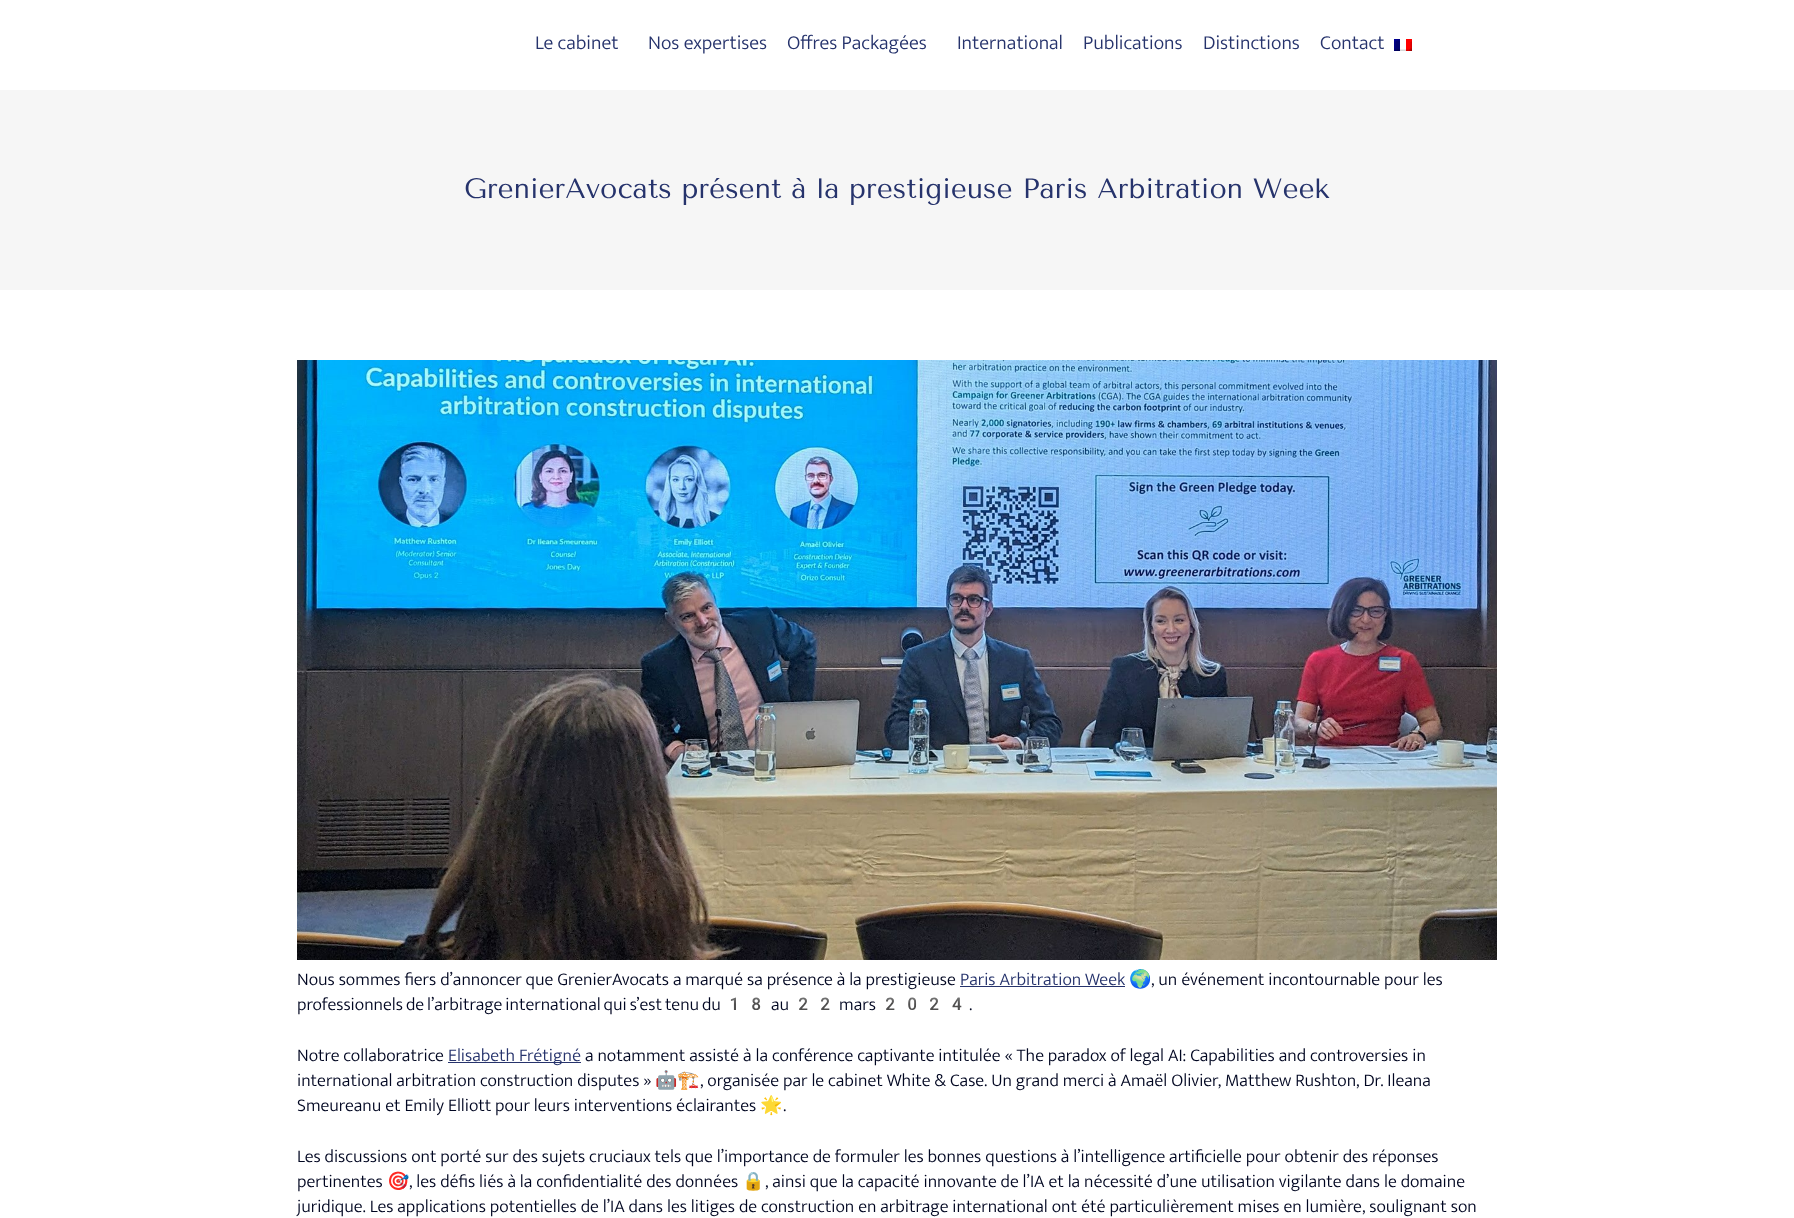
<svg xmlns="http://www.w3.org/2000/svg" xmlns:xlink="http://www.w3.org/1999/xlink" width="1794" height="1218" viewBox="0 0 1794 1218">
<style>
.cls-1{font:300 20px Mukta;fill:#26336c}
.cls-2{font:28px Tenor Sans;fill:#26336c}
.cls-3{font:300 18px Mukta;fill:#000621}
.cls-4{font:300 18px Mukta;fill:#26336c}
.cls-5{font:18px Noto Color Emoji;fill:#000621}
</style>
<rect width="100%" height="100%" fill="#ffffff"/>
<image xlink:href="image0.png" x="1394" y="39" width="18" height="12"/>
<rect fill="#f6f6f6" x="0" y="90" width="1794" height="200"/>
<image xlink:href="image1.png" x="297" y="360" width="1200" height="600"/>
<rect fill="#26336c" x="960" y="986" width="165" height="1"/>
<rect fill="#26336c" x="448" y="1062" width="133" height="1"/>
<text class="cls-1" x="535" y="49">Le cabinet</text>
<text class="cls-1" x="648" y="49">Nos expertises</text>
<text class="cls-1" x="787" y="49">Offres Packagées</text>
<text class="cls-1" x="957" y="49">International</text>
<text class="cls-1" x="1083" y="49">Publications</text>
<text class="cls-1" x="1203" y="49">Distinctions</text>
<text class="cls-1" x="1320" y="49">Contact</text>
<text class="cls-2" x="464" y="198">GrenierAvocats présent à la prestigieuse Paris Arbitration Week</text>
<text class="cls-3" x="297" y="985">Nous sommes fiers d’annoncer que GrenierAvocats a marqué sa présence à la prestigieuse</text>
<text class="cls-4" x="960" y="985">Paris Arbitration Week</text>
<text class="cls-5" x="1129" y="985">🌍</text>
<text class="cls-3" x="1151" y="985">, un événement incontournable pour les</text>
<text class="cls-3" x="297" y="1010" word-spacing="-1">professionnels de l’arbitrage international qui s’est tenu du</text>
<text class="cls-5" x="723" y="1010">18</text>
<text class="cls-3" x="771" y="1010">au</text>
<text class="cls-5" x="792" y="1010">22</text>
<text class="cls-3" x="839" y="1010">mars</text>
<text class="cls-5" x="879" y="1010">2024</text>
<text class="cls-3" x="969" y="1010">.</text>
<text class="cls-3" x="297" y="1061">Notre collaboratrice</text>
<text class="cls-4" x="448" y="1061">Elisabeth Frétigné</text>
<text class="cls-3" x="585" y="1061">a notamment assisté à la conférence captivante intitulée « The paradox of legal AI: Capabilities and controversies in</text>
<text class="cls-3" x="297" y="1086">international arbitration construction disputes »</text>
<text class="cls-5" x="655" y="1086">🤖🏗️</text>
<text class="cls-3" x="700" y="1086">, organisée par le cabinet White &amp; Case. Un grand merci à Amaël Olivier, Matthew Rushton, Dr. Ileana</text>
<text class="cls-3" x="297" y="1111">Smeureanu et Emily Elliott pour leurs interventions éclairantes</text>
<text class="cls-5" x="760" y="1111">🌟</text>
<text class="cls-3" x="783" y="1111">.</text>
<text class="cls-3"><tspan x="297" y="1162">Les discussions ont porté sur des sujets cruciaux tels que l’importance de formuler les bonnes questions à l’intelligence artificielle pour obtenir des réponses</tspan><tspan x="297" y="1187">pertinentes</tspan></text>
<text class="cls-5" x="387" y="1187">🎯</text>
<text class="cls-3" x="409" y="1187">, les défis liés à la confidentialité des données</text>
<text class="cls-5" x="742" y="1187">🔒</text>
<text class="cls-3" x="765" y="1187">, ainsi que la capacité innovante de l’IA et la nécessité d’une utilisation vigilante dans le domaine</text>
<text class="cls-3" x="297" y="1212">juridique. Les applications potentielles de l’IA dans les litiges de construction en arbitrage international ont été particulièrement mises en lumière, soulignant son</text>
</svg>
